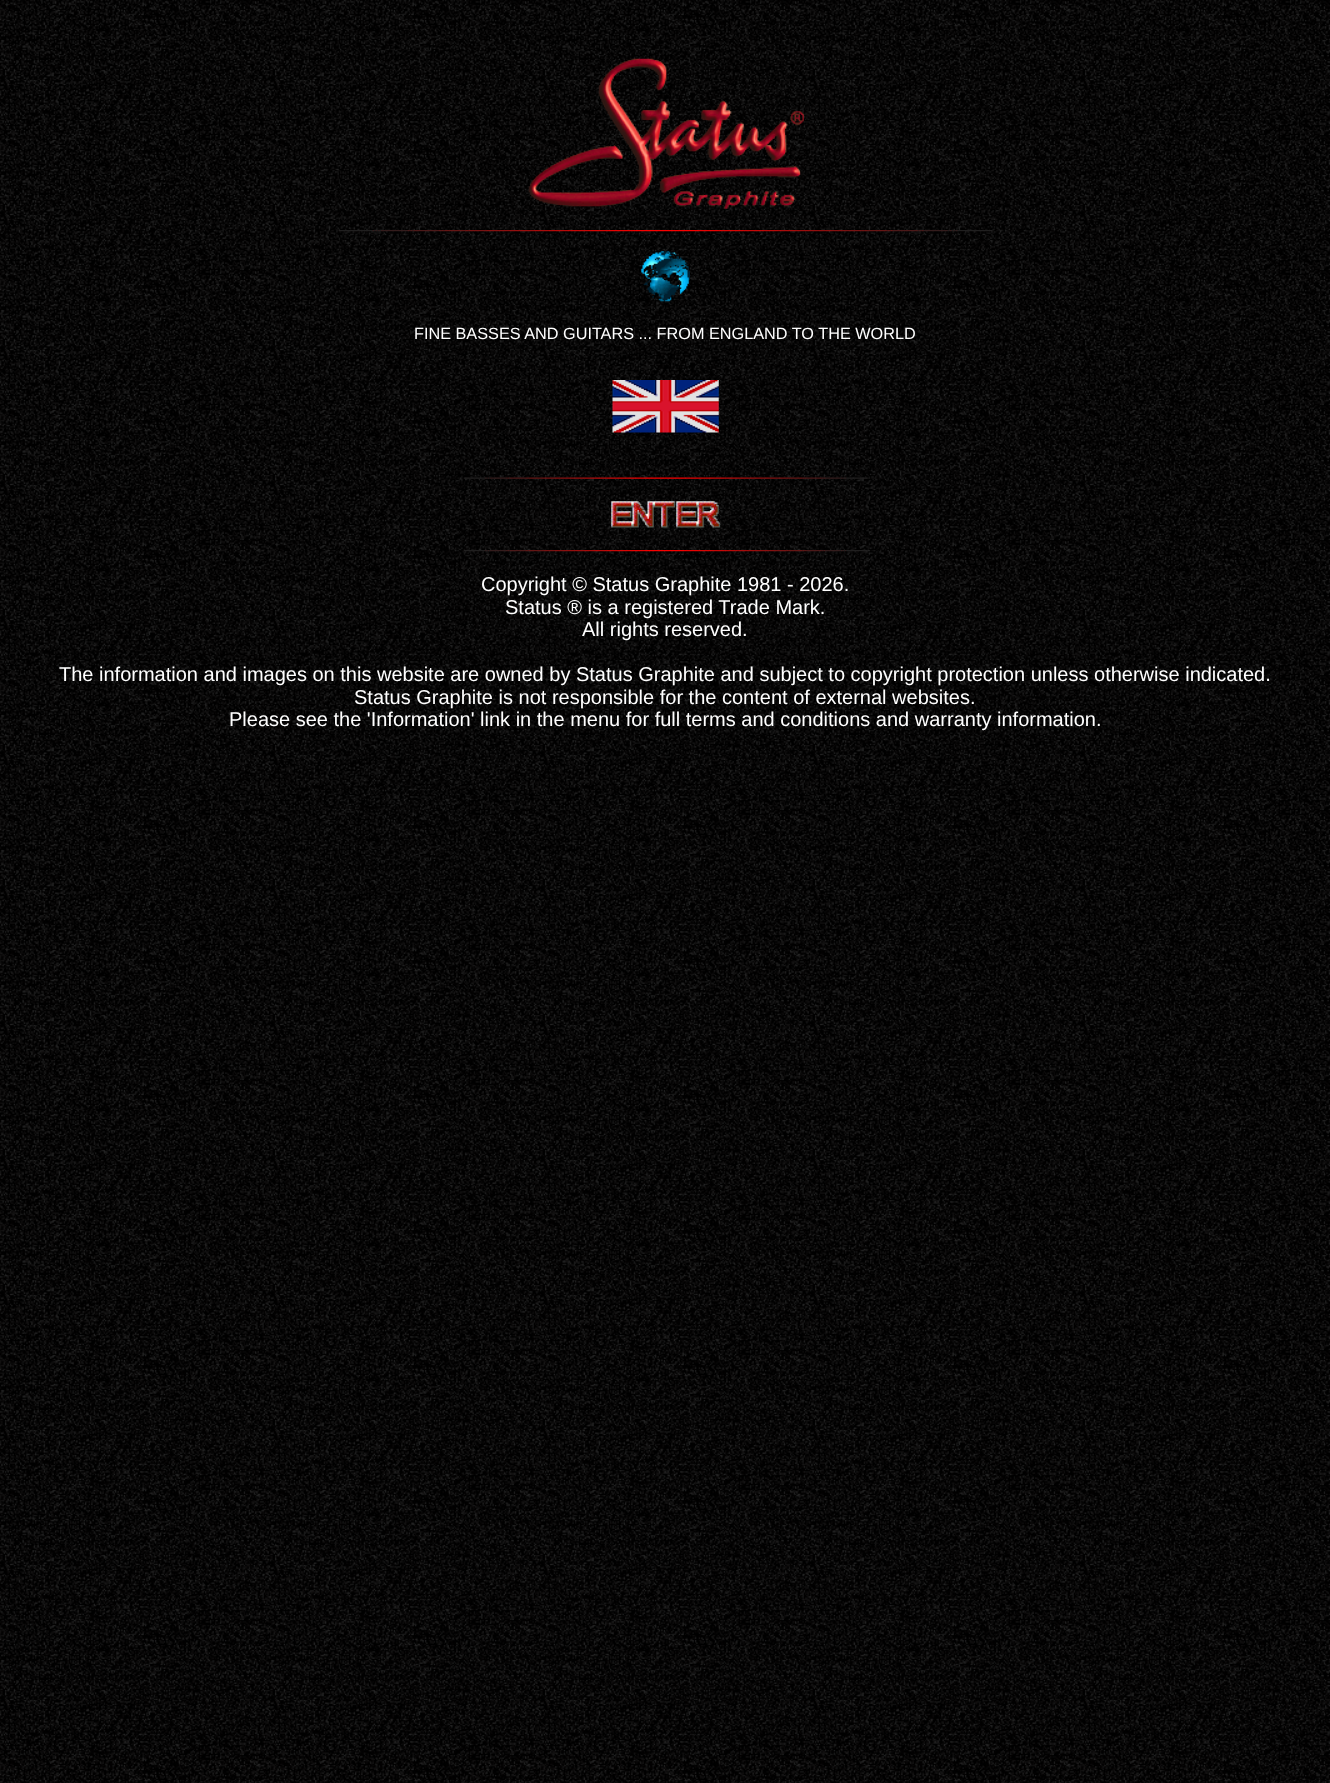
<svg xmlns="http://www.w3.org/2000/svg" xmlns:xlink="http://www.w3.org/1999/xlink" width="1330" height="1783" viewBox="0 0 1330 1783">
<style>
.cls-1{font:16.25px Liberation Sans;fill:#ffffff}
.cls-2{font:20px Liberation Sans;fill:#ffffff}
</style>
<rect width="100%" height="100%" fill="#ffffff"/>
<image xlink:href="image0.png" x="0" y="0" width="1330" height="1783"/>
<image xlink:href="image1.png" x="528" y="58" width="276" height="151"/>
<image xlink:href="image2.png" x="338" y="230" width="655" height="2"/>
<image xlink:href="image3.png" x="641" y="251" width="49" height="51"/>
<image xlink:href="image4.png" x="612" y="380" width="107" height="53"/>
<image xlink:href="image5.png" x="463" y="477" width="405" height="2"/>
<image xlink:href="image6.png" x="611" y="501" width="110" height="27"/>
<image xlink:href="image7.png" x="463" y="550" width="404" height="2"/>
<text class="cls-1" x="414" y="339">FINE BASSES AND GUITARS ... FROM ENGLAND TO THE WORLD</text>
<text class="cls-2" x="481" y="591">Copyright © Status Graphite 1981 - 2026.</text>
<text class="cls-2" x="505" y="614">Status ® is a registered Trade Mark.</text>
<text class="cls-2" x="582" y="636">All rights reserved.</text>
<text class="cls-2" x="59" y="681">The information and images on this website are owned by Status Graphite and subject to copyright protection unless otherwise indicated.</text>
<text class="cls-2" x="354" y="704">Status Graphite is not responsible for the content of external websites.</text>
<text class="cls-2" x="229" y="726">Please see the 'Information' link in the menu for full terms and conditions and warranty information.</text>
</svg>
